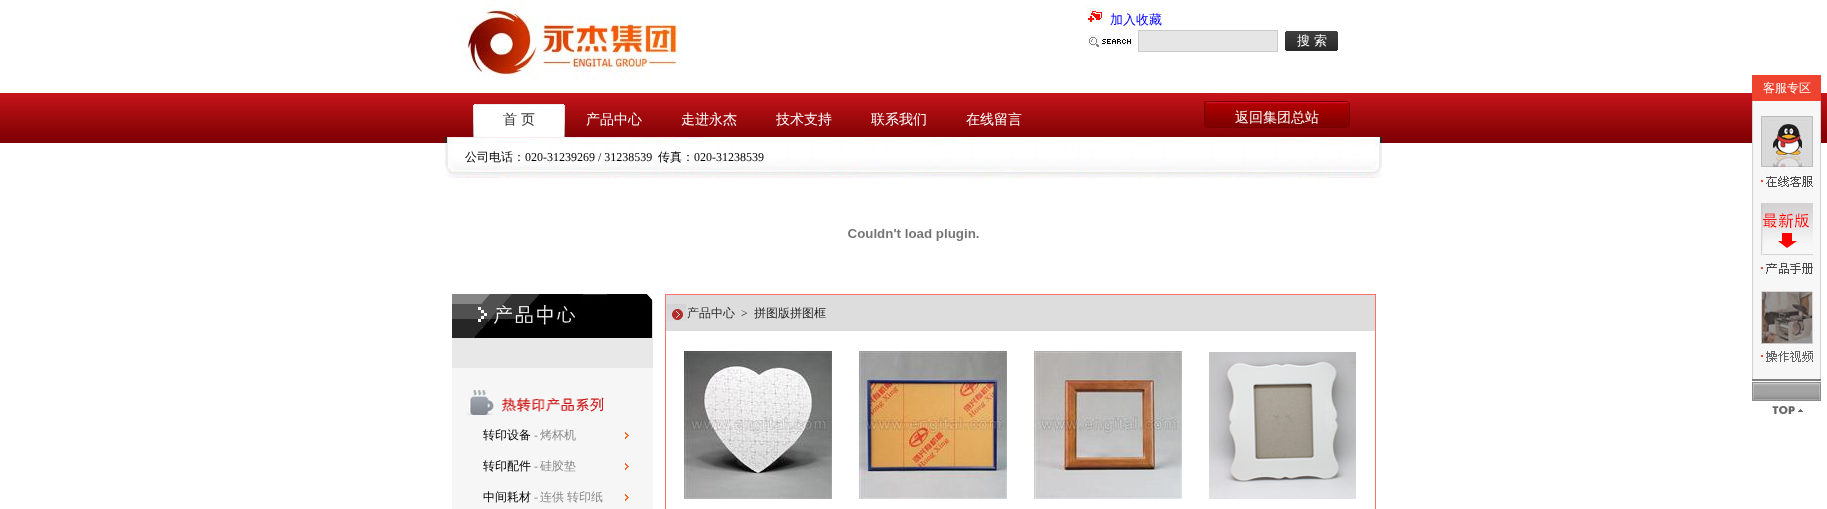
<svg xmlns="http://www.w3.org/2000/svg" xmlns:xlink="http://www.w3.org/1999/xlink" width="1827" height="509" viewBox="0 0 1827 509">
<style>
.cls-1{font:500 13px WenQuanYi Zen Hei;fill:#0000ff}
.cls-2{font:500 13px WenQuanYi Zen Hei;fill:#ffffff}
.cls-3{font:500 14px WenQuanYi Zen Hei;fill:#333333}
.cls-4{font:500 14px WenQuanYi Zen Hei;fill:#ffffff}
.cls-5{font:500 12px WenQuanYi Zen Hei;fill:#000000}
.cls-6{font:12px Liberation Serif;fill:#000000}
.cls-7{font:500 12px WenQuanYi Zen Hei;fill:#ffffff}
.cls-8{font:500 12px WenQuanYi Zen Hei;fill:#292929}
.cls-9{font:12px Liberation Serif;fill:#292929}
.cls-10{font:12px Liberation Serif;fill:#898989}
.cls-11{font:500 12px WenQuanYi Zen Hei;fill:#898989}
</style>
<rect width="100%" height="100%" fill="#ffffff"/>
<image xlink:href="image0.png" x="0" y="93" width="1827" height="50"/>
<image xlink:href="image1.png" x="460" y="0" width="222" height="80"/>
<image xlink:href="image2.png" x="1086" y="4" width="17" height="20"/>
<image xlink:href="image3.png" x="1088" y="35" width="45" height="13"/>
<rect fill="#e6e6e6" stroke="#cbcbcb" x="1138.5" y="30.5" width="139" height="21"/>
<image xlink:href="image4.png" x="1285" y="31" width="53" height="20"/>
<image xlink:href="image5.png" x="473" y="102" width="92" height="35"/>
<image xlink:href="image6.png" x="1204" y="94" width="147" height="40"/>
<image xlink:href="image7.png" x="445" y="137" width="937" height="41"/>
<image xlink:href="image8.png" x="848" y="229" width="131" height="12"/>
<rect fill="#ee442f" x="1752" y="75" width="69" height="26"/>
<rect fill="#f7f7f7" x="1753" y="101" width="67" height="278"/>
<rect fill="#d1d1d1" x="1820" y="101" width="1" height="278"/>
<rect fill="#d1d1d1" x="1752" y="101" width="1" height="278"/>
<image xlink:href="image9.png" x="1761" y="116" width="52" height="72"/>
<image xlink:href="image10.png" x="1760" y="203" width="53" height="72"/>
<image xlink:href="image11.png" x="1760" y="290" width="53" height="72"/>
<image xlink:href="image12.png" x="1752" y="379" width="69" height="36"/>
<rect fill="none" stroke="#ff7070" x="665.5" y="294.5" width="710" height="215"/>
<rect fill="#dddddd" x="666" y="295" width="709" height="36"/>
<image xlink:href="image13.png" x="667" y="304" width="19" height="17"/>
<image xlink:href="image14.png" x="684" y="351" width="148" height="148"/>
<image xlink:href="image15.png" x="859" y="351" width="148" height="148"/>
<image xlink:href="image16.png" x="1034" y="351" width="148" height="148"/>
<image xlink:href="image17.png" x="1209" y="352" width="147" height="147"/>
<image xlink:href="image18.png" x="452" y="294" width="201" height="44"/>
<rect fill="#e8e8e8" x="452" y="338" width="201" height="30"/>
<rect fill="#f6f6f6" x="452" y="368" width="201" height="141"/>
<image xlink:href="image19.png" x="467" y="388" width="137" height="27"/>
<image xlink:href="image20.png" x="625" y="432" width="4" height="7"/>
<image xlink:href="image20.png" x="625" y="463" width="4" height="7"/>
<image xlink:href="image20.png" x="625" y="494" width="4" height="7"/>
<text class="cls-1" x="1110" y="24">加入收藏</text>
<text class="cls-2" x="1297" y="45">搜 索</text>
<text class="cls-3" x="503" y="124">首</text>
<text class="cls-3" x="521" y="124">页</text>
<text class="cls-4" x="586" y="124">产品中心</text>
<text class="cls-4" x="681" y="124">走进永杰</text>
<text class="cls-4" x="776" y="124">技术支持</text>
<text class="cls-4" x="871" y="124">联系我们</text>
<text class="cls-4" x="966" y="124">在线留言</text>
<text class="cls-4" x="1235" y="122">返回集团总站</text>
<text class="cls-5" x="465" y="161">公司电话：</text>
<text class="cls-6" x="525" y="161">020-31239269 / 31238539</text>
<text class="cls-5" x="658" y="161">传真：</text>
<text class="cls-6" x="694" y="161">020-31238539</text>
<text class="cls-7" x="1763" y="92">客服专区</text>
<text class="cls-8" x="687" y="317">产品中心</text>
<text class="cls-9" x="741" y="317">&gt;</text>
<text class="cls-8" x="754" y="317">拼图版拼图框</text>
<text class="cls-5" x="483" y="439">转印设备</text>
<text class="cls-10" x="534" y="439">-</text>
<text class="cls-11" x="540" y="439">烤杯机</text>
<text class="cls-5" x="483" y="470">转印配件</text>
<text class="cls-10" x="534" y="470">-</text>
<text class="cls-11" x="540" y="470">硅胶垫</text>
<text class="cls-5" x="483" y="501">中间耗材</text>
<text class="cls-10" x="534" y="501">-</text>
<text class="cls-11" x="540" y="501">连供</text>
<text class="cls-11" x="567" y="501">转印纸</text>
</svg>
